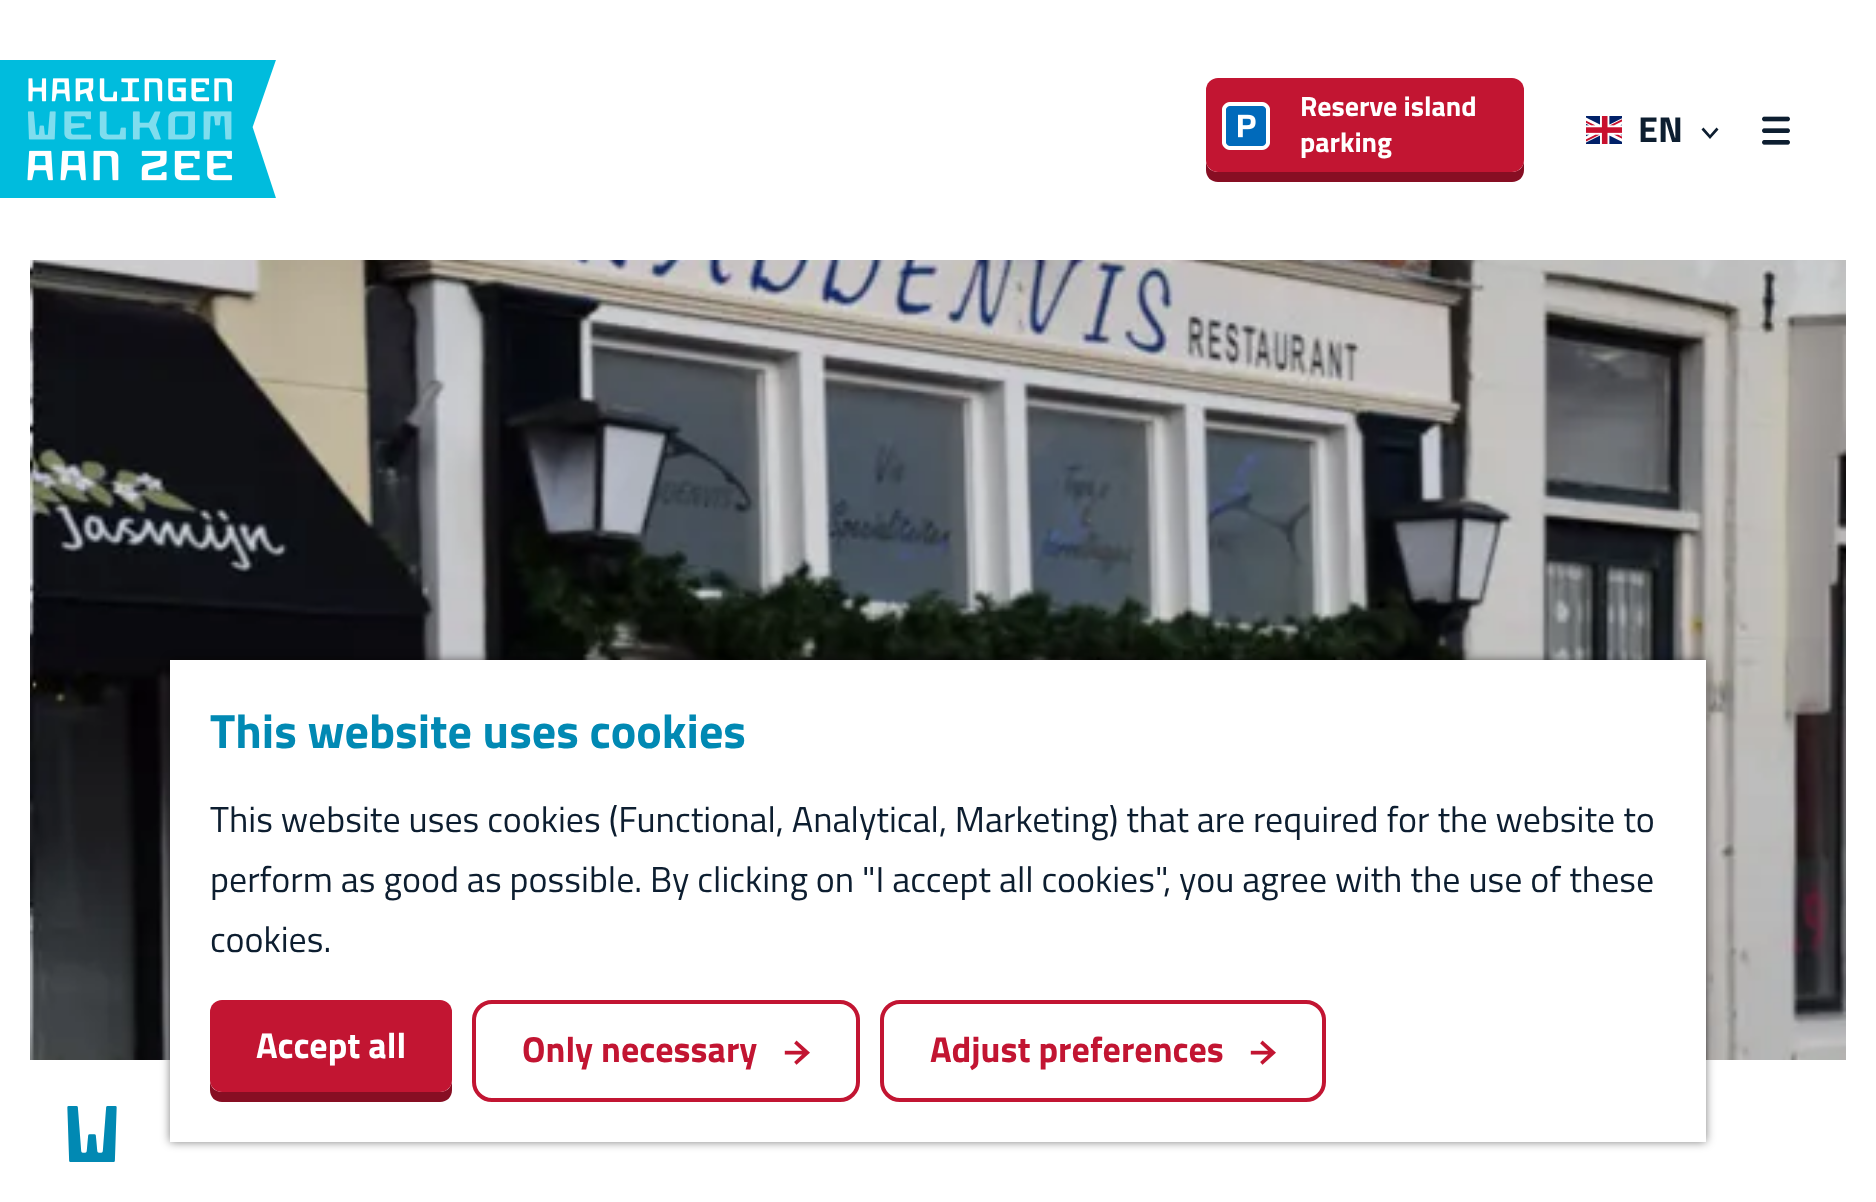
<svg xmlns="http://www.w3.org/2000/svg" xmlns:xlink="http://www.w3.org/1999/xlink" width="1876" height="1202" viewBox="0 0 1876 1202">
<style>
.cls-1{font:bold 28px Titillium Web;fill:#ffffff}
.cls-2{font:bold 36px Titillium Web;fill:#0d1e30}
.cls-3{font:bold 48px Titillium Web;fill:#0189b3}
.cls-4{font:36px Titillium Web;fill:#0d1e30}
.cls-5{font:bold 36px Titillium Web;fill:#ffffff}
.cls-6{font:bold 36px Titillium Web;fill:#c21532}
.cls-7{font:80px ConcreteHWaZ;fill:#0189b3}
</style>
<rect width="100%" height="100%" fill="#ffffff"/>
<image xlink:href="image0.png" x="0" y="60" width="276" height="138"/>
<path fill="#870e23" d="M1206 160V170C1206 177 1211 182 1218 182H1512C1519 182 1524 177 1524 170V160C1524 167 1519 172 1512 172H1218C1211 172 1206 167 1206 160Z"/>
<rect fill="#c21532" x="1206" y="78" width="318" height="94" rx="12"/>
<rect fill="#006abb" x="1222" y="102" width="48" height="48" rx="12"/>
<image xlink:href="image1.png" x="1222" y="102" width="48" height="48"/>
<image xlink:href="image2.png" x="1586" y="116" width="36" height="28"/>
<path fill="#0d1e30" d="M1716.5 127.5L1710 135L1703.5 127.5L1701.5 129.5L1710 139L1718.5 129.5Z"/>
<image xlink:href="image3.png" x="1762" y="116" width="28" height="29"/>
<image xlink:href="image5.png" x="30" y="260" width="1816" height="800"/>
<rect fill="#000000" fill-opacity="0.5" filter="blur(5px)" x="170" y="660" width="1536" height="482"/>
<rect fill="#ffffff" x="170" y="660" width="1536" height="482"/>
<path fill="#870e23" d="M210 1080V1090C210 1097 215 1102 222 1102H440C447 1102 452 1097 452 1090V1080C452 1087 447 1092 440 1092H222C215 1092 210 1087 210 1080Z"/>
<rect fill="#c21532" x="210" y="1000" width="242" height="92" rx="12"/>
<rect fill="none" stroke="#c21532" stroke-width="4" x="474" y="1002" width="384" height="98" rx="18"/>
<image xlink:href="image4.png" x="784" y="1040" width="26" height="25"/>
<rect fill="none" stroke="#c21532" stroke-width="4" x="882" y="1002" width="442" height="98" rx="18"/>
<image xlink:href="image4.png" x="1250" y="1040" width="26" height="25"/>
<text class="cls-1"><tspan x="1300" y="116">Reserve island</tspan><tspan x="1300" y="152">parking</tspan></text>
<text class="cls-2" x="1638" y="142">EN</text>
<text class="cls-3" x="210" y="748">This website uses cookies</text>
<text class="cls-4"><tspan x="210" y="832">This website uses cookies (Functional, Analytical, Marketing) that are required for the website to</tspan><tspan x="210" y="892">perform as good as possible. By clicking on "I accept all cookies", you agree with the use of these</tspan><tspan x="210" y="952">cookies.</tspan></text>
<text class="cls-5" x="256" y="1058">Accept all</text>
<text class="cls-6" x="522" y="1062">Only necessary</text>
<text class="cls-6" x="930" y="1062">Adjust preferences</text>
<text class="cls-7" x="60" y="1162">W</text>
</svg>
